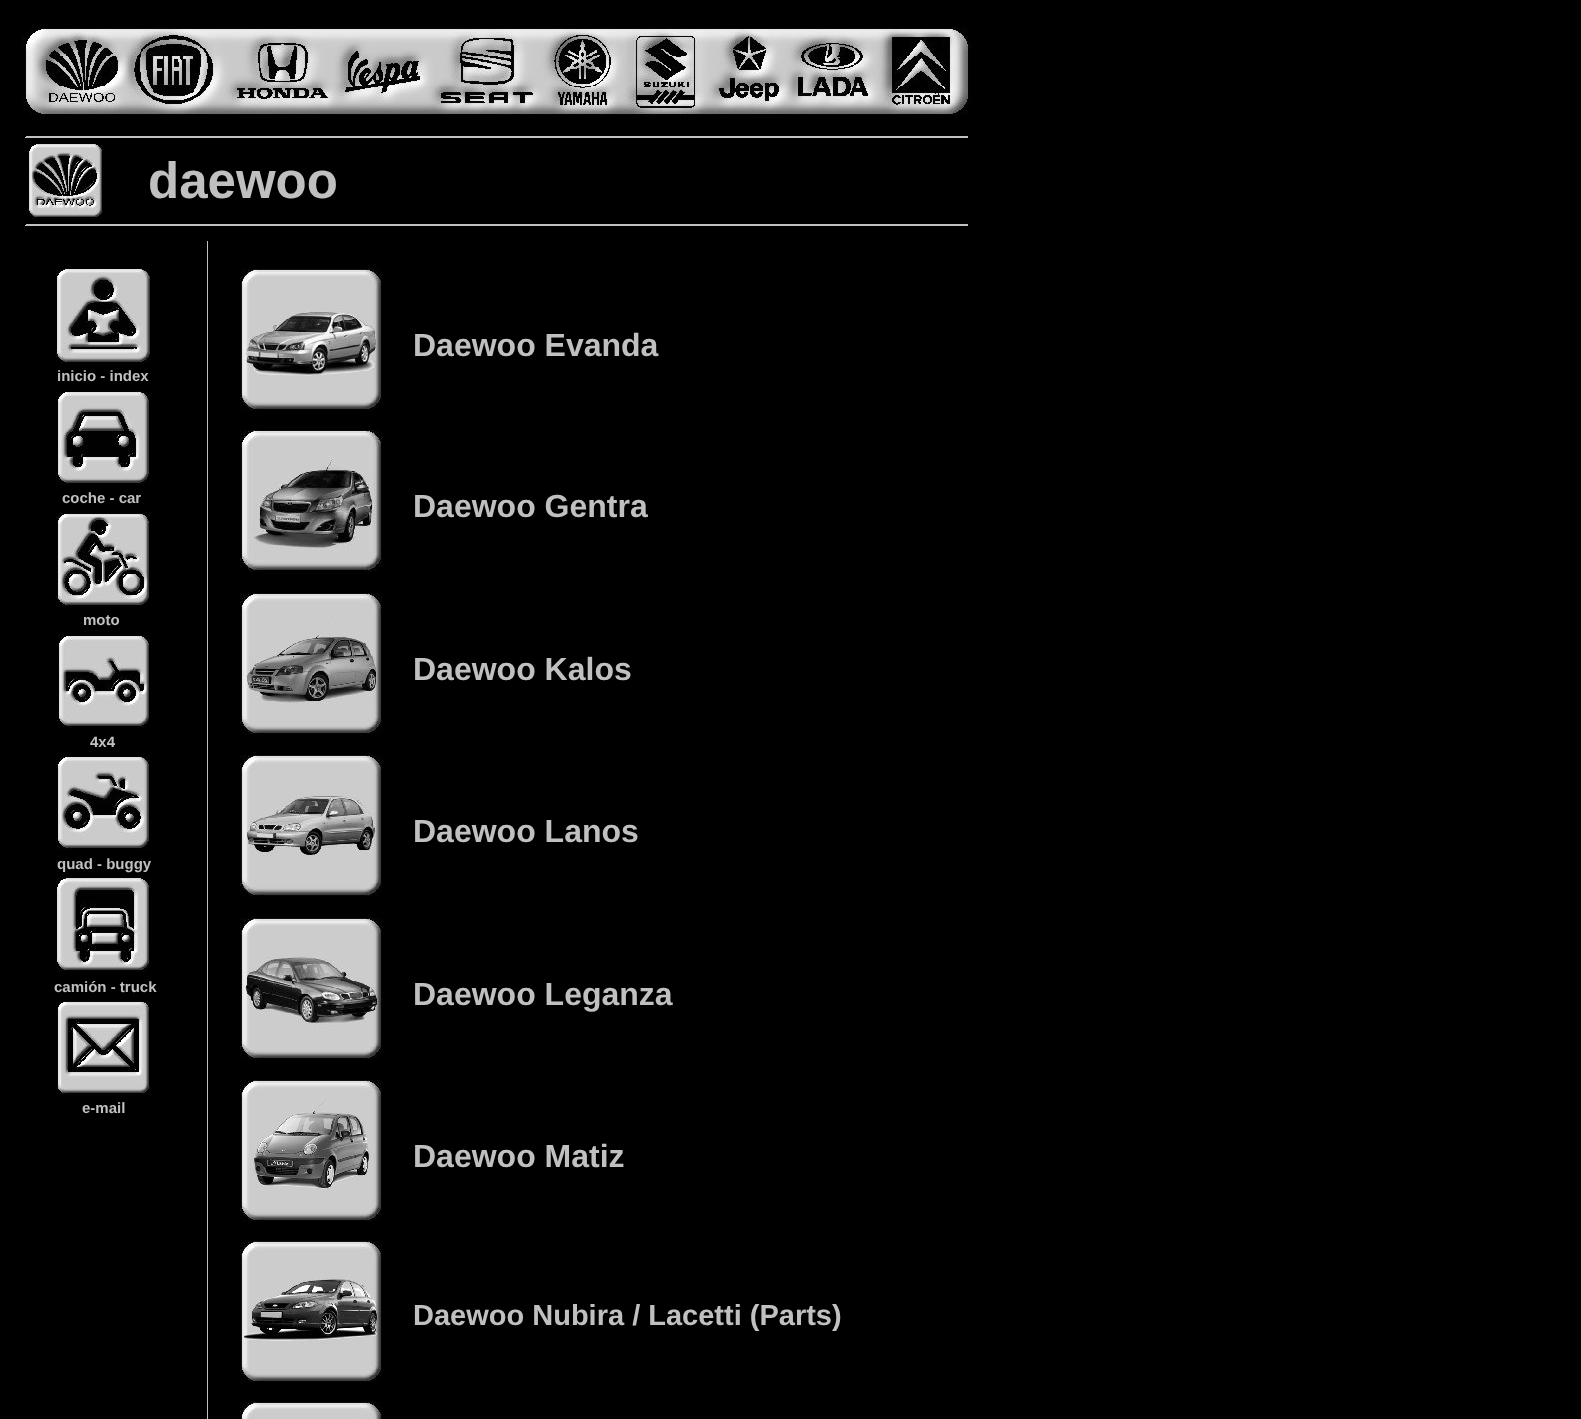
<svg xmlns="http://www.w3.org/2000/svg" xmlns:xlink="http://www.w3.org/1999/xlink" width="1581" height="1419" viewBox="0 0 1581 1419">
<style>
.cls-1{font:bold 51px Liberation Sans;fill:#c0c0c0}
.cls-2{font:bold 32px Liberation Sans;fill:#c0c0c0}
.cls-3{font:bold 15px Liberation Sans;fill:#c0c0c0}
.cls-4{font:bold 29px Liberation Sans;fill:#c0c0c0}
</style>
<rect width="100%" height="100%" fill="#000000"/>
<image xlink:href="image0.png" x="22" y="27" width="950" height="90"/>
<image xlink:href="image1.png" x="25" y="136" width="943" height="2"/>
<image xlink:href="image2.png" x="28" y="144" width="75" height="75"/>
<image xlink:href="image1.png" x="25" y="224" width="943" height="2"/>
<image xlink:href="image3.png" x="56" y="269" width="94" height="94"/>
<rect fill="#c0c0c0" x="207" y="241" width="1" height="1178"/>
<image xlink:href="image4.png" x="240" y="269" width="142" height="142"/>
<image xlink:href="image5.png" x="56" y="391" width="94" height="94"/>
<image xlink:href="image6.png" x="240" y="430" width="142" height="142"/>
<image xlink:href="image7.png" x="56" y="513" width="94" height="94"/>
<image xlink:href="image8.png" x="240" y="593" width="142" height="142"/>
<image xlink:href="image9.png" x="57" y="635" width="93" height="93"/>
<image xlink:href="image10.png" x="56" y="756" width="94" height="94"/>
<image xlink:href="image11.png" x="240" y="755" width="142" height="142"/>
<image xlink:href="image12.png" x="56" y="878" width="94" height="94"/>
<image xlink:href="image13.png" x="240" y="918" width="142" height="142"/>
<image xlink:href="image14.png" x="56" y="1001" width="94" height="94"/>
<image xlink:href="image15.png" x="240" y="1080" width="142" height="142"/>
<image xlink:href="image16.png" x="240" y="1241" width="142" height="142"/>
<image xlink:href="image17.png" x="240" y="1402" width="142" height="17"/>
<text class="cls-1" x="148" y="198">daewoo</text>
<text class="cls-2" x="413" y="356">Daewoo Evanda</text>
<text class="cls-3" x="57" y="381">inicio - index</text>
<text class="cls-3" x="62" y="503">coche - car</text>
<text class="cls-2" x="413" y="517">Daewoo Gentra</text>
<text class="cls-3" x="83" y="625">moto</text>
<text class="cls-2" x="413" y="680">Daewoo Kalos</text>
<text class="cls-3" x="90" y="747">4x4</text>
<text class="cls-2" x="413" y="842">Daewoo Lanos</text>
<text class="cls-3" x="57" y="869">quad - buggy</text>
<text class="cls-3" x="54" y="992">camión - truck</text>
<text class="cls-2" x="413" y="1005">Daewoo Leganza</text>
<text class="cls-3" x="82" y="1113">e-mail</text>
<text class="cls-2" x="413" y="1167">Daewoo Matiz</text>
<text class="cls-4" x="413" y="1325">Daewoo Nubira / Lacetti (Parts)</text>
</svg>
